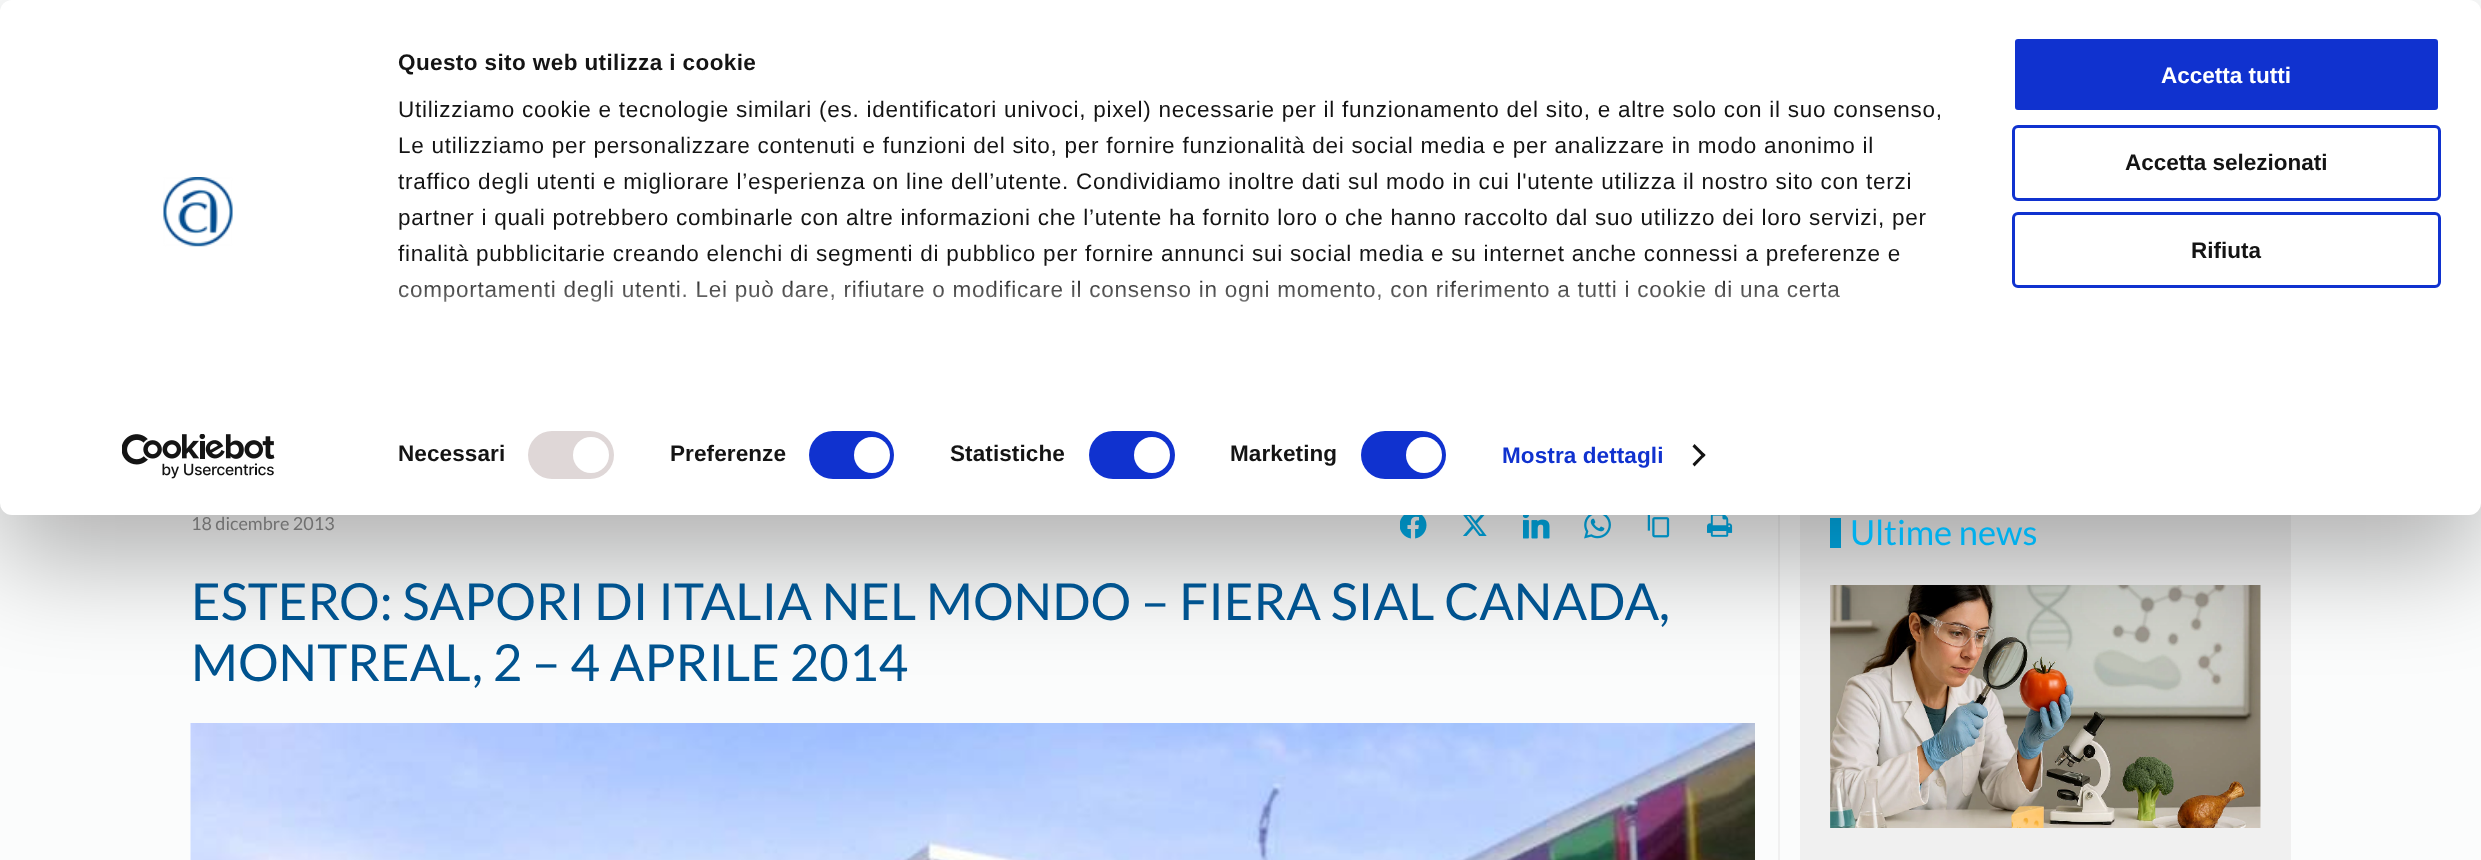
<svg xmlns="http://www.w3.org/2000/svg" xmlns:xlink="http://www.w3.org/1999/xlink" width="2481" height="860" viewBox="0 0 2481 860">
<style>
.cls-1{font:bold 22.5px Liberation Sans;letter-spacing:0.4px;fill:#141414}
.cls-2{font:22.5px Liberation Sans;letter-spacing:0.75px;fill:#141414}
.cls-3{font:bold 22.5px Liberation Sans;letter-spacing:0.1px;fill:#141414}
.cls-4{font:bold 22.5px Liberation Sans;letter-spacing:0.1px;fill:#1032cf}
.cls-5{font:bold 22.5px Liberation Sans;fill:#ffffff}
.cls-6{font:bold 22.5px Liberation Sans;fill:#141414}
.cls-7{font:18px Lato;fill:#707070}
.cls-8{font:51px Lato;fill:#00538f}
.cls-9{font:34.5px Lato;fill:#00afec}
</style>
<defs>
<linearGradient id="g1" gradientUnits="userSpaceOnUse" x1="1169" y1="386" x2="1169" y2="273"><stop offset="0" stop-color="#ffffff"/><stop offset="0.5" stop-color="#ffffff" stop-opacity="0.8"/><stop offset="1" stop-color="#ffffff" stop-opacity="0"/></linearGradient>
</defs>
<rect width="100%" height="100%" fill="#fbfcfc"/>
<image xlink:href="image2.png" x="1400" y="515" width="27" height="24"/>
<image xlink:href="image3.png" x="1463" y="515" width="24" height="21"/>
<image xlink:href="image4.png" x="1523" y="515" width="27" height="24"/>
<image xlink:href="image5.png" x="1584" y="515" width="27" height="24"/>
<image xlink:href="image6.png" x="1647" y="515" width="23" height="23"/>
<image xlink:href="image7.png" x="1707" y="515" width="26" height="22"/>
<rect fill="#f0f0f0" x="1778" y="515" width="2" height="345"/>
<rect fill="#f0f0f0" x="1800" y="515" width="491" height="345"/>
<rect fill="#00afec" x="1830" y="518" width="11" height="30"/>
<image xlink:href="image9.png" x="1830" y="585" width="431" height="243"/>
<rect fill="#000000" fill-opacity="0.3" filter="blur(52.5px)" x="0" y="45" width="2481" height="515" rx="12"/>
<rect fill="#ffffff" x="0" y="0" width="2481" height="515" rx="12"/>
<image xlink:href="image0.png" x="163" y="177" width="70" height="70"/>
<image xlink:href="image1.png" x="122" y="434" width="153" height="45"/>
<rect fill="#dfd7d7" x="528" y="431" width="86" height="48" rx="24"/>
<circle fill="#ffffff" cx="591" cy="455" r="18"/>
<rect fill="#1032cf" x="809" y="431" width="85" height="48" rx="24"/>
<circle fill="#ffffff" cx="872" cy="455" r="18"/>
<rect fill="#1032cf" x="1089" y="431" width="86" height="48" rx="24"/>
<circle fill="#ffffff" cx="1152" cy="455" r="18"/>
<rect fill="#1032cf" x="1361" y="431" width="85" height="48" rx="24"/>
<circle fill="#ffffff" cx="1424" cy="455" r="18"/>
<path fill="#141414" d="M1694.5 444L1705.5 455L1703.5 457.5L1692.5 446.5Z"/>
<path fill="#141414" d="M1703.5 453L1705.5 455L1694.5 466.5L1692.5 464Z"/>
<rect fill="#1032cf" stroke="#ffffff" stroke-width="3" x="2013.5" y="37.5" width="426" height="74" rx="4.5"/>
<rect fill="none" stroke="#1032cf" stroke-width="3" x="2013.5" y="126.5" width="426" height="73" rx="4.5"/>
<rect fill="none" stroke="#1032cf" stroke-width="3" x="2013.5" y="213.5" width="426" height="73" rx="4.5"/>
<image xlink:href="image8.png" x="190" y="723" width="1565" height="137"/>
<text class="cls-1" x="398" y="70">Questo sito web utilizza i cookie</text>
<text class="cls-2"><tspan x="398" y="117">Utilizziamo cookie e tecnologie similari (es. identificatori univoci, pixel) necessarie per il funzionamento del sito, e altre solo con il suo consenso,</tspan><tspan x="398" y="153">Le utilizziamo per personalizzare contenuti e funzioni del sito, per fornire funzionalità dei social media e per analizzare in modo anonimo il</tspan><tspan x="398" y="189">traffico degli utenti e migliorare l’esperienza on line dell’utente. Condividiamo inoltre dati sul modo in cui l'utente utilizza il nostro sito con terzi</tspan><tspan x="398" y="225">partner i quali potrebbero combinarle con altre informazioni che l’utente ha fornito loro o che hanno raccolto dal suo utilizzo dei loro servizi, per</tspan><tspan x="398" y="261">finalità pubblicitarie creando elenchi di segmenti di pubblico per fornire annunci sui social media e su internet anche connessi a preferenze e</tspan><tspan x="398" y="297">comportamenti degli utenti. Lei può dare, rifiutare o modificare il consenso in ogni momento, con riferimento a tutti i cookie di una certa</tspan></text>
<rect fill="url(#g1)" x="398" y="280" width="1442" height="22"/>
<text class="cls-3" x="398" y="461">Necessari</text>
<text class="cls-3" x="670" y="461">Preferenze</text>
<text class="cls-3" x="950" y="461">Statistiche</text>
<text class="cls-3" x="1230" y="461">Marketing</text>
<text class="cls-4" x="1502" y="463">Mostra dettagli</text>
<text class="cls-5" x="2161" y="83">Accetta tutti</text>
<text class="cls-6" x="2125" y="170">Accetta selezionati</text>
<text class="cls-6" x="2191" y="258">Rifiuta</text>
<text class="cls-7" x="191" y="530">18 dicembre 2013</text>
<text class="cls-8"><tspan x="191" y="620">ESTERO: SAPORI DI ITALIA NEL MONDO – FIERA SIAL CANADA,</tspan><tspan x="191" y="681">MONTREAL, 2 – 4 APRILE 2014</tspan></text>
<text class="cls-9" x="1850" y="545">Ultime news</text>
</svg>
